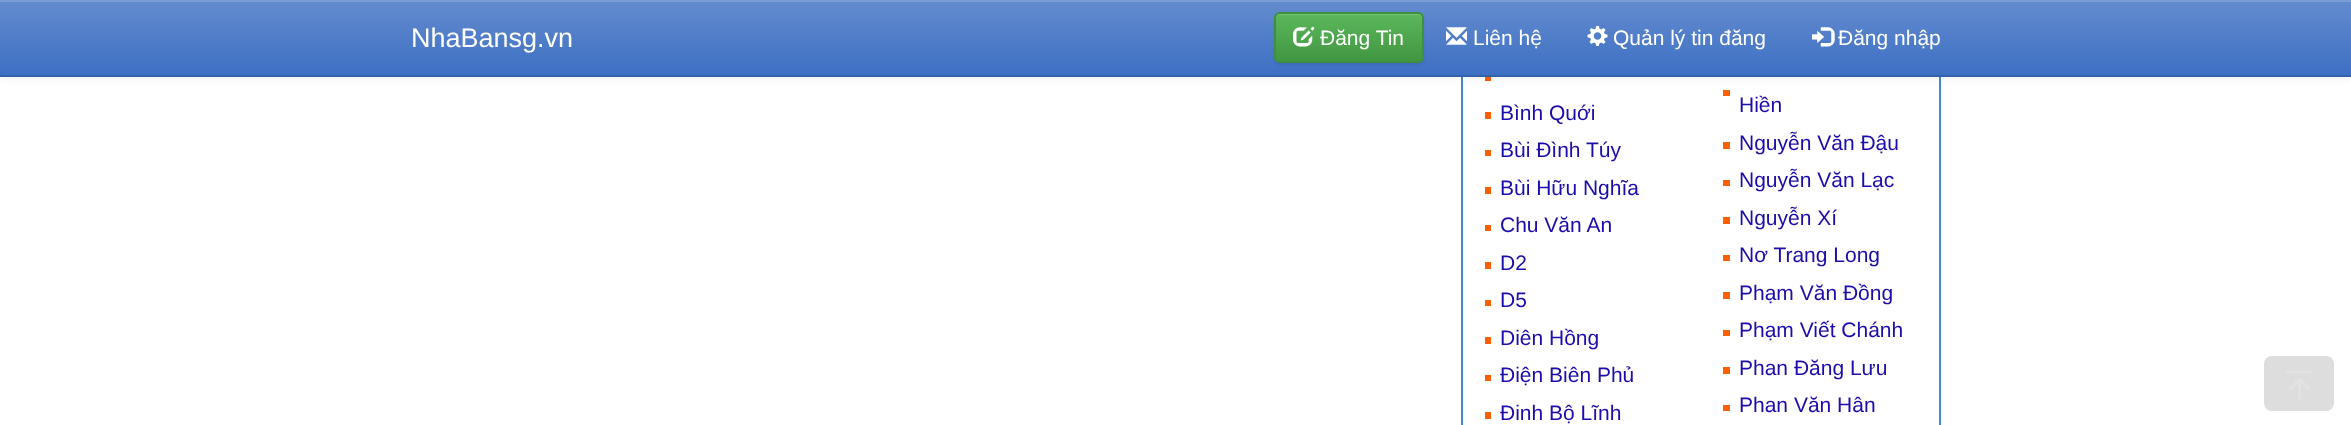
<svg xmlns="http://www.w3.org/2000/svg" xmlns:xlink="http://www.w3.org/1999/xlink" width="2351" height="425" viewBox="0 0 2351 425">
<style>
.cls-1{font:27px Liberation Sans;fill:#ffffff}
.cls-2{font:21px Liberation Sans;fill:#ffffff}
.cls-3{font:21px Liberation Sans;fill:#1a0dab}
</style>
<defs>
<linearGradient id="g1" gradientUnits="userSpaceOnUse" x1="1176" y1="0" x2="1176" y2="75"><stop offset="0" stop-color="#648ccf"/><stop offset="1" stop-color="#3d6fc3"/></linearGradient>
<clipPath id="clip1"><rect x="1274" y="12" width="150" height="51" rx="6"/></clipPath>
<linearGradient id="g2" gradientUnits="userSpaceOnUse" x1="1349" y1="13" x2="1349" y2="62"><stop offset="0" stop-color="#5cb85c"/><stop offset="1" stop-color="#419641"/></linearGradient>
</defs>
<rect width="100%" height="100%" fill="#ffffff"/>
<rect fill="none" stroke="#428bca" stroke-width="2" x="1462" y="-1" width="478" height="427"/>
<rect fill="#fe6000" x="1485" y="77" width="6" height="4"/>
<rect fill="#fe6000" x="1723" y="90" width="7" height="6"/>
<rect fill="#000000" fill-opacity="0.07" filter="blur(4px)" x="0" y="2" width="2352" height="76"/>
<rect fill="url(#g1)" x="0" y="2" width="2351" height="73"/>
<rect fill="#7b9dd6" x="0" y="0" width="2351" height="2"/>
<rect fill="#3561aa" x="0" y="75" width="2351" height="2"/>
<rect fill="#000000" fill-opacity="0.07" filter="blur(1px)" x="1274" y="14" width="150" height="51" rx="6"/>
<g clip-path="url(#clip1)">
<rect fill="url(#g2)" x="1274" y="14" width="150" height="48"/>
</g>
<path fill="#74c274" d="M1280 15H1418C1420 15 1422 17 1422 20V19C1422 16 1420 14 1417 14H1280C1277 14 1275 16 1275 19V20C1275 17 1277 15 1280 15Z"/>
<rect fill="none" stroke="#3e8f3e" stroke-width="2" x="1275" y="13" width="148" height="49" rx="5"/>
<image xlink:href="image0.png" x="1293" y="26" width="22" height="21"/>
<image xlink:href="image1.png" x="1446" y="27" width="21" height="18"/>
<image xlink:href="image2.png" x="1587" y="25" width="21" height="21"/>
<image xlink:href="image3.png" x="1812" y="27" width="23" height="20"/>
<rect fill="#fe6000" x="1485" y="112" width="6" height="7"/>
<rect fill="#fe6000" x="1485" y="150" width="6" height="6"/>
<rect fill="#fe6000" x="1485" y="187" width="6" height="7"/>
<rect fill="#fe6000" x="1485" y="225" width="6" height="6"/>
<rect fill="#fe6000" x="1485" y="262" width="6" height="7"/>
<rect fill="#fe6000" x="1485" y="300" width="6" height="6"/>
<rect fill="#fe6000" x="1485" y="337" width="6" height="7"/>
<rect fill="#fe6000" x="1485" y="375" width="6" height="6"/>
<rect fill="#fe6000" x="1485" y="412" width="6" height="7"/>
<rect fill="#fe6000" x="1723" y="142" width="7" height="7"/>
<rect fill="#fe6000" x="1723" y="180" width="7" height="6"/>
<rect fill="#fe6000" x="1723" y="217" width="7" height="7"/>
<rect fill="#fe6000" x="1723" y="255" width="7" height="6"/>
<rect fill="#fe6000" x="1723" y="292" width="7" height="7"/>
<rect fill="#fe6000" x="1723" y="330" width="7" height="6"/>
<rect fill="#fe6000" x="1723" y="367" width="7" height="7"/>
<rect fill="#fe6000" x="1723" y="405" width="7" height="6"/>
<rect fill="#dddddd" x="2264" y="356" width="70" height="55" rx="8"/>
<image xlink:href="image4.png" x="2286" y="371" width="27" height="28"/>
<text class="cls-1" x="411" y="47">NhaBansg.vn</text>
<text class="cls-2" x="1320" y="45">Đăng Tin</text>
<text class="cls-2" x="1473" y="45">Liên hệ</text>
<text class="cls-2" x="1613" y="45">Quản lý tin đăng</text>
<text class="cls-2" x="1838" y="45">Đăng nhập</text>
<text class="cls-3"><tspan x="1500" y="120">Bình Quới</tspan><tspan x="1500" y="157">Bùi Đình Túy</tspan><tspan x="1500" y="195">Bùi Hữu Nghĩa</tspan><tspan x="1500" y="232">Chu Văn An</tspan><tspan x="1500" y="270">D2</tspan><tspan x="1500" y="307">D5</tspan><tspan x="1500" y="345">Diên Hồng</tspan><tspan x="1500" y="382">Điện Biên Phủ</tspan><tspan x="1500" y="420">Đinh Bộ Lĩnh</tspan></text>
<text class="cls-3"><tspan x="1739" y="112">Hiền</tspan><tspan x="1739" y="150">Nguyễn Văn Đậu</tspan><tspan x="1739" y="187">Nguyễn Văn Lạc</tspan><tspan x="1739" y="225">Nguyễn Xí</tspan><tspan x="1739" y="262">Nơ Trang Long</tspan><tspan x="1739" y="300">Phạm Văn Đồng</tspan><tspan x="1739" y="337">Phạm Viết Chánh</tspan><tspan x="1739" y="375">Phan Đăng Lưu</tspan><tspan x="1739" y="412">Phan Văn Hân</tspan></text>
</svg>
